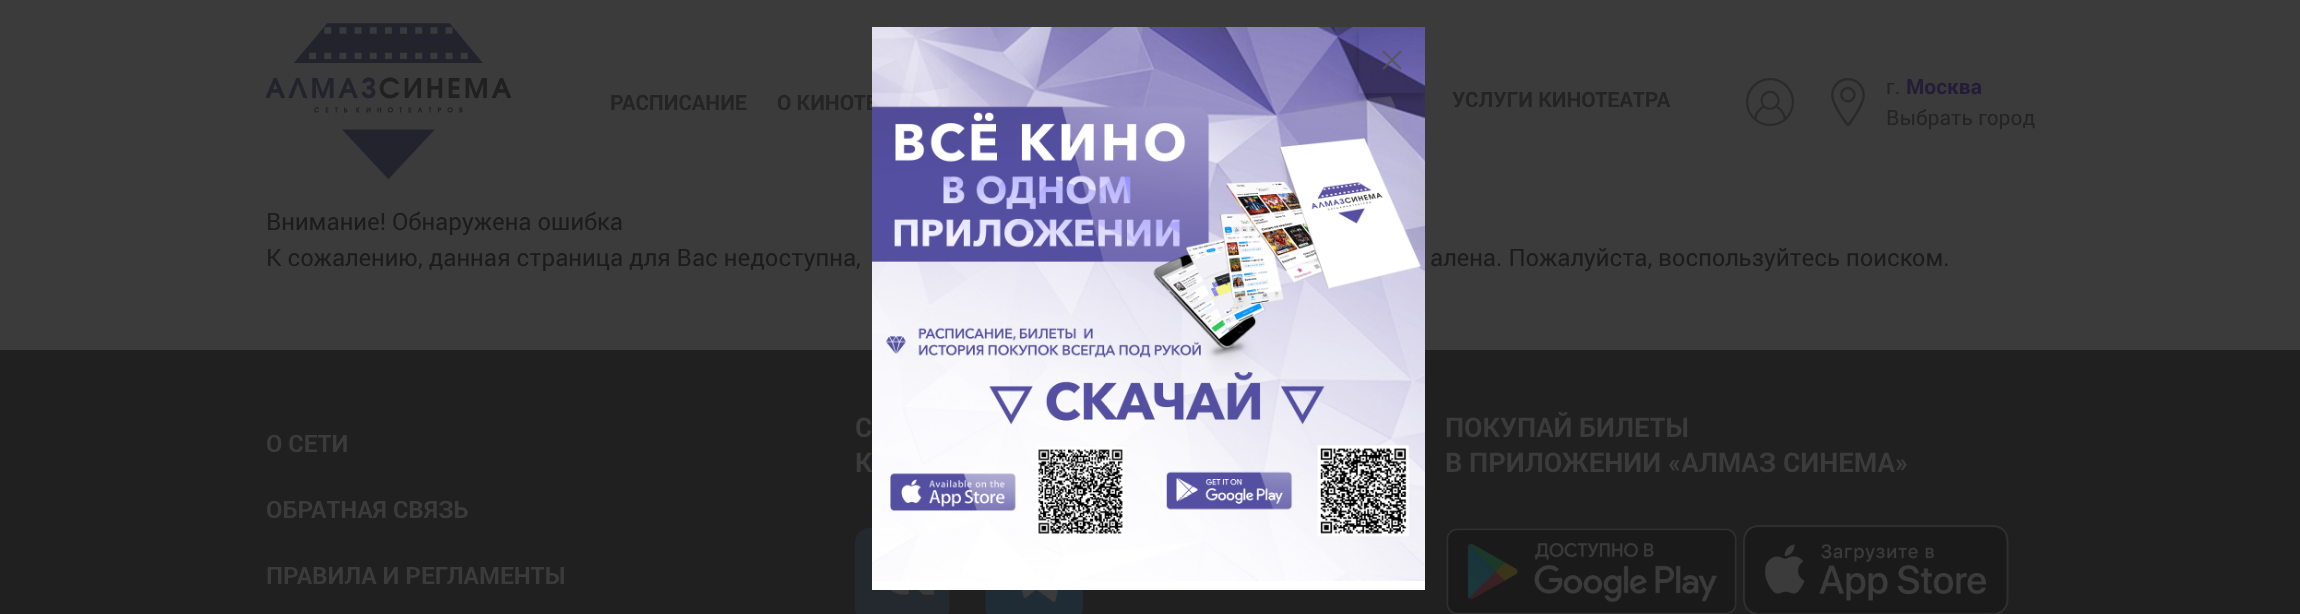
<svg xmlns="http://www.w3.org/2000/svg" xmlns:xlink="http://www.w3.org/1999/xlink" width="2300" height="614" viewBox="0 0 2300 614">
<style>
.cls-1{font:bold 21px Roboto;fill:#242424}
.cls-2{font:21px Roboto;fill:#242424}
.cls-3{font:bold 21px Roboto;fill:#251d37}
.cls-4{font:24px Roboto;fill:#1c1c1c}
.cls-5{font:bold 24px Roboto;fill:#3b3b3b}
.cls-6{font:bold 27px Roboto;fill:#3b3b3b}
</style>
<defs>
<clipPath id="clip1"><rect x="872" y="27" width="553" height="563"/></clipPath>
<clipPath id="clip2"><path d="M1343 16H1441V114H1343ZM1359 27H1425V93H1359Z" clip-rule="evenodd"/></clipPath>
</defs>
<rect width="100%" height="100%" fill="#3b3b3b"/>
<rect fill="#202020" x="0" y="350" width="2300" height="264"/>
<image xlink:href="image4.png" x="855" y="528" width="95" height="86"/>
<rect fill="#ffffff" x="872" y="581" width="553" height="9"/>
<image xlink:href="image1.png" x="266" y="23" width="246" height="157"/>
<image xlink:href="image2.png" x="1746" y="78" width="48" height="48"/>
<image xlink:href="image3.png" x="1831" y="78" width="34" height="48"/>
<image xlink:href="image5.png" x="985" y="590" width="98" height="24"/>
<image xlink:href="image6.png" x="1446" y="528" width="291" height="86"/>
<image xlink:href="image7.png" x="1743" y="525" width="266" height="89"/>
<text class="cls-1" x="610" y="110">РАСПИСАНИЕ</text>
<text class="cls-1" x="777" y="110">О КИНОТЕ</text>
<text class="cls-1" x="1452" y="107">УСЛУГИ КИНОТЕАТРА</text>
<text class="cls-2" x="1886" y="94">г.</text>
<text class="cls-3" x="1906" y="94">Москва</text>
<text class="cls-2" x="1886" y="125">Выбрать город</text>
<text class="cls-4"><tspan x="266" y="230">Внимание! Обнаружена ошибка</tspan><tspan x="266" y="266">К сожалению, данная страница для Вас недоступна,</tspan></text>
<text class="cls-4" x="1430" y="266">алена. Пожалуйста, воспользуйтесь поиском.</text>
<text class="cls-5" x="266" y="452">О СЕТИ</text>
<text class="cls-5" x="266" y="518">ОБРАТНАЯ СВЯЗЬ</text>
<text class="cls-5" x="266" y="584">ПРАВИЛА И РЕГЛАМЕНТЫ</text>
<text class="cls-6"><tspan x="855" y="437">С</tspan><tspan x="855" y="472">К</tspan></text>
<image xlink:href="image0.png" x="872" y="27" width="553" height="554"/>
<g clip-path="url(#clip1)">
<g clip-path="url(#clip2)">
<rect fill="#000000" fill-opacity="0.2" filter="blur(5px)" x="1359" y="32" width="66" height="66"/>
</g>
</g>
<path fill="none" stroke="#555555" stroke-opacity="0.8" stroke-width="2.2" d="M1383 51L1401 69M1401 51L1383 69"/>
<text class="cls-6"><tspan x="1445" y="437">ПОКУПАЙ БИЛЕТЫ</tspan><tspan x="1445" y="472">В ПРИЛОЖЕНИИ «АЛМАЗ СИНЕМА»</tspan></text>
</svg>
